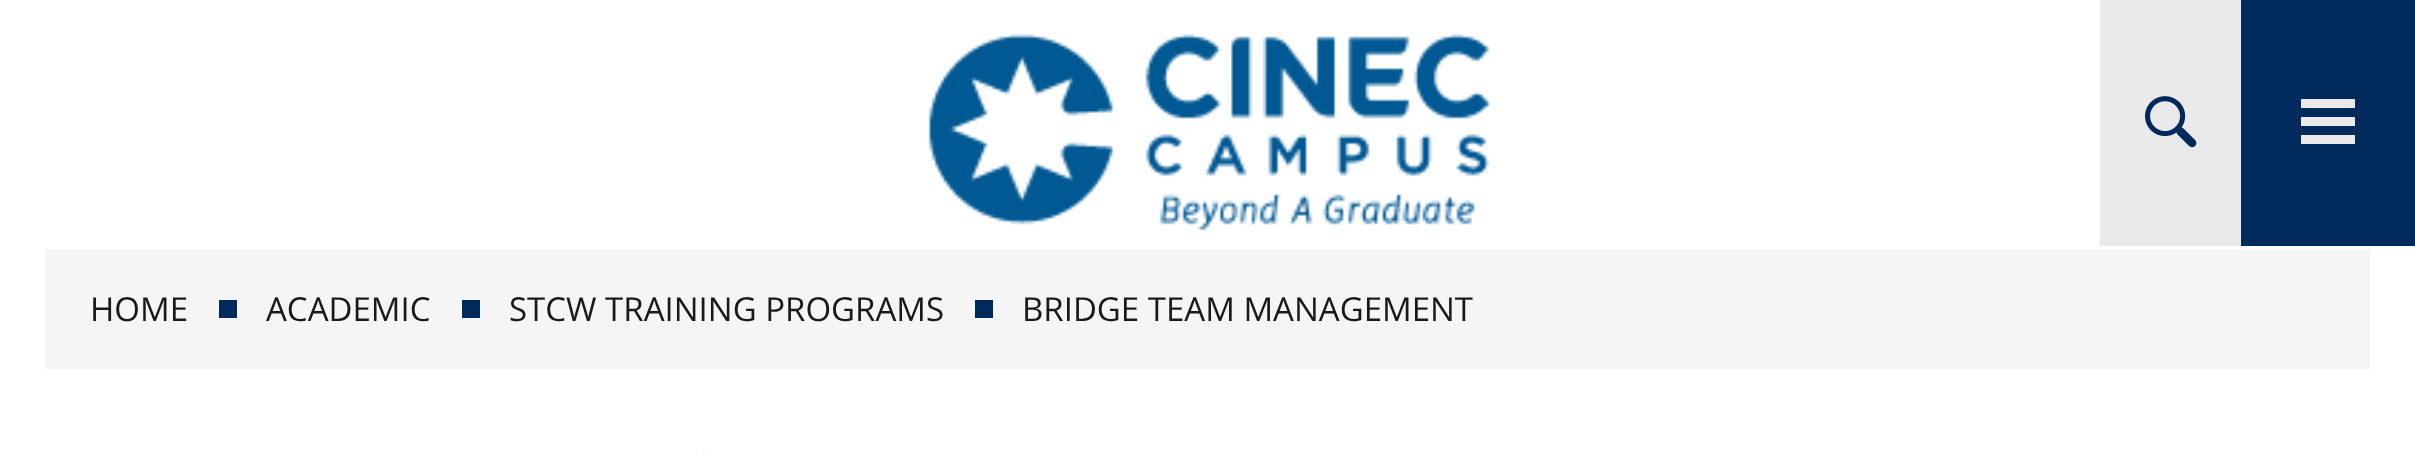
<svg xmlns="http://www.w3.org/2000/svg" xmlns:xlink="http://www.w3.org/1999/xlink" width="2415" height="456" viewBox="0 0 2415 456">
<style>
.cls-1{font:33px Open Sans;fill:#191919}
</style>
<rect width="100%" height="100%" fill="#ffffff"/>
<image xlink:href="image0.png" x="928" y="33" width="562" height="198"/>
<rect fill="#eaeaea" x="2100" y="0" width="141" height="246"/>
<image xlink:href="image1.png" x="2145" y="96" width="52" height="52"/>
<rect fill="#002a5c" x="2241" y="0" width="174" height="246"/>
<rect fill="#eaeaea" x="2301" y="99" width="54" height="9"/>
<rect fill="#eaeaea" x="2301" y="117" width="54" height="9"/>
<rect fill="#eaeaea" x="2301" y="135" width="54" height="9"/>
<rect fill="#f5f5f5" x="45" y="249" width="2325" height="120"/>
<rect fill="#002a5c" x="219" y="300" width="18" height="18"/>
<rect fill="#002a5c" x="462" y="300" width="18" height="18"/>
<rect fill="#002a5c" x="975" y="300" width="18" height="18"/>
<image xlink:href="image2.png" x="702" y="455" width="6" height="1"/>
<text class="cls-1" x="90" y="321">HOME</text>
<text class="cls-1" x="266" y="321">ACADEMIC</text>
<text class="cls-1" x="509" y="321">STCW TRAINING PROGRAMS</text>
<text class="cls-1" x="1022" y="321">BRIDGE TEAM MANAGEMENT</text>
</svg>
